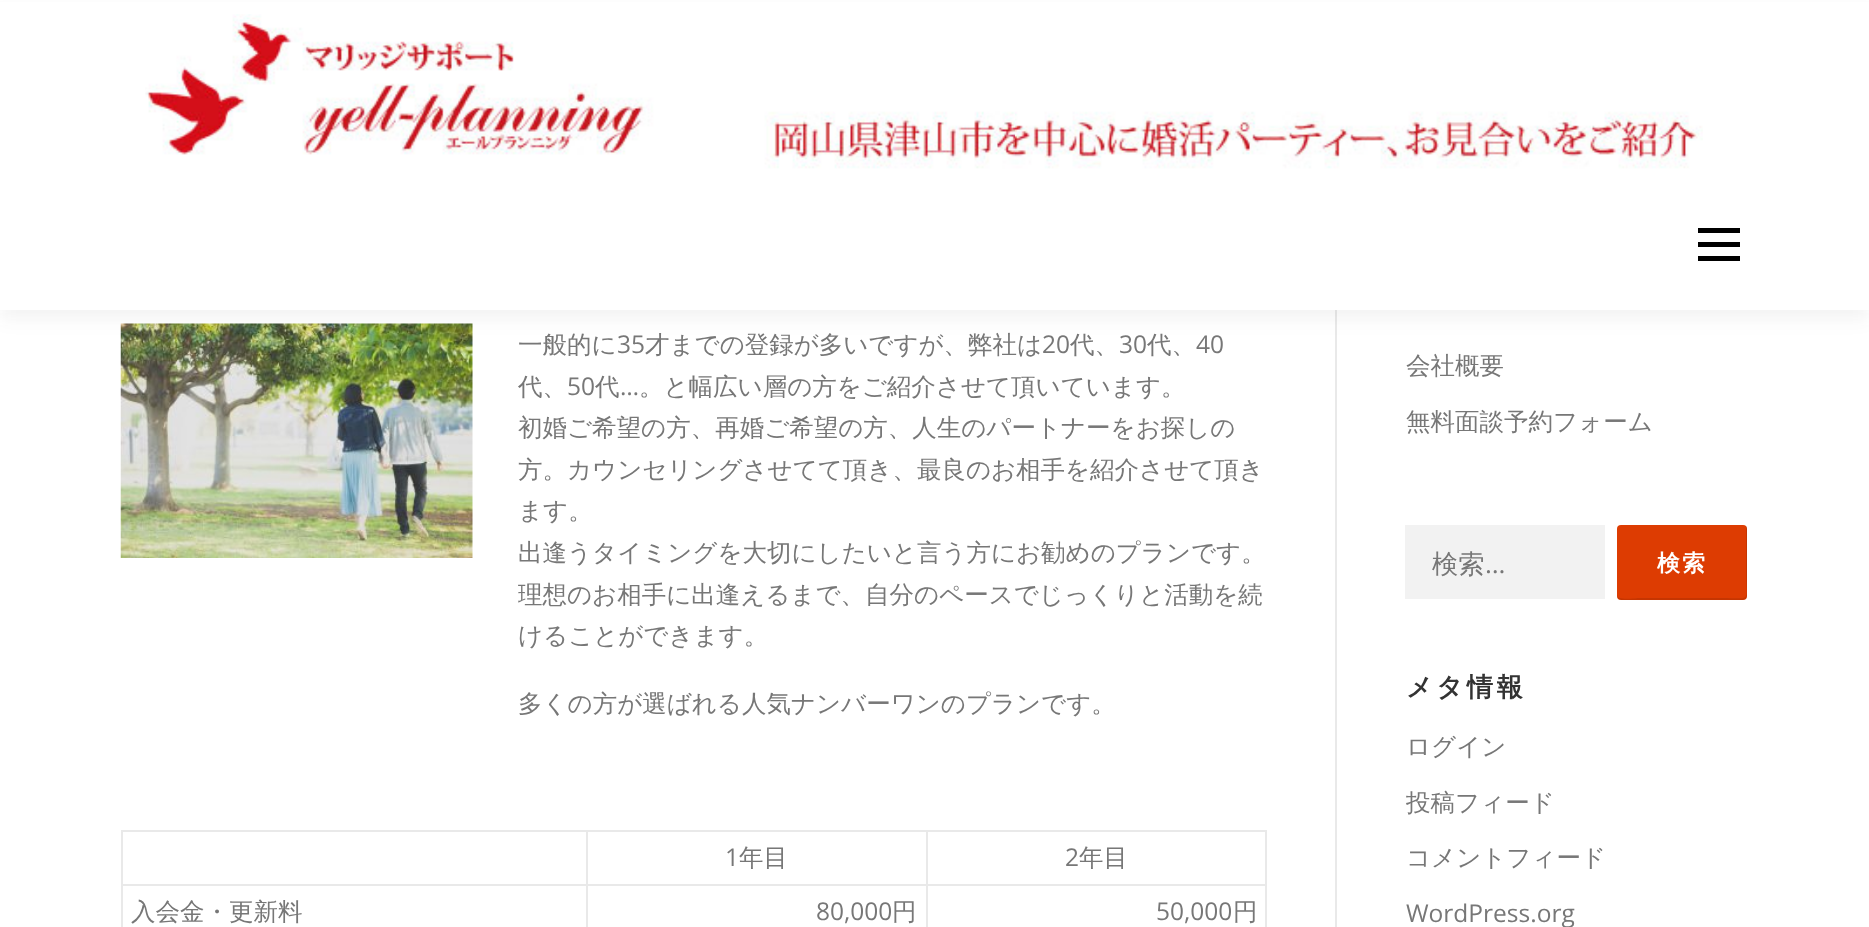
<svg xmlns="http://www.w3.org/2000/svg" xmlns:xlink="http://www.w3.org/1999/xlink" width="1869" height="927" viewBox="0 0 1869 927">
<style>
.cls-1{font:500 24.5px WenQuanYi Zen Hei;fill:#777777}
.cls-2{font:24.5px Open Sans;fill:#777777}
.cls-3{font:500 26.25px WenQuanYi Zen Hei;fill:#777777}
.cls-4{font:26.25px Open Sans;fill:#777777}
.cls-5{font:bold 23px WenQuanYi Zen Hei;letter-spacing:2px;fill:#ffffff}
.cls-6{font:bold 26.25px WenQuanYi Zen Hei;letter-spacing:3.5px;fill:#333333}
</style>
<rect width="100%" height="100%" fill="#ffffff"/>
<rect fill="#e9e9e9" x="1335" y="310" width="2" height="617"/>
<image xlink:href="image1.png" x="120" y="323" width="353" height="235"/>
<rect fill="#323232" fill-opacity="0.06" filter="blur(9px)" x="0" y="9" width="1869" height="310"/>
<rect fill="#ffffff" x="0" y="2" width="1869" height="308"/>
<image xlink:href="image0.png" x="145" y="14" width="1558" height="155"/>
<rect fill="#000000" x="1698" y="242" width="42" height="5"/>
<rect fill="#000000" x="1698" y="228" width="42" height="5"/>
<rect fill="#000000" x="1698" y="256" width="42" height="5"/>
<rect fill="#e9e9e9" x="121" y="830" width="1146" height="2"/>
<rect fill="#e9e9e9" x="1265" y="830" width="2" height="97"/>
<rect fill="#e9e9e9" x="121" y="830" width="2" height="97"/>
<rect fill="#e9e9e9" x="926" y="884" width="341" height="2"/>
<rect fill="#e9e9e9" x="926" y="884" width="2" height="43"/>
<rect fill="#e9e9e9" x="586" y="884" width="342" height="2"/>
<rect fill="#e9e9e9" x="586" y="884" width="2" height="43"/>
<rect fill="#e9e9e9" x="121" y="884" width="467" height="2"/>
<rect fill="#e9e9e9" x="586" y="830" width="2" height="56"/>
<rect fill="#e9e9e9" x="926" y="830" width="2" height="56"/>
<rect fill="#f2f2f2" x="1405" y="525" width="200" height="74"/>
<rect fill="#dd3c02" x="1617" y="525" width="130" height="75" rx="4"/>
<path fill="#000000" fill-opacity="0.1" d="M1617 595V596C1617 598 1619 600 1621 600H1743C1745 600 1747 598 1747 596V529C1747 528 1747 527 1746 526V572C1746 603 1753 598 1722 598H1640C1635 598 1617 601 1617 595Z"/>
<text class="cls-1" x="518" y="353">一般的に</text>
<text class="cls-2" x="617" y="353">35</text>
<text class="cls-1" x="645" y="353">才までの登録が多いですが、弊社は</text>
<text class="cls-2" x="1042" y="353">20</text>
<text class="cls-1" x="1070" y="353">代、</text>
<text class="cls-2" x="1119" y="353">30</text>
<text class="cls-1" x="1147" y="353">代、</text>
<text class="cls-2" x="1196" y="353">40</text>
<text class="cls-1" x="518" y="395">代、</text>
<text class="cls-2" x="567" y="395">50</text>
<text class="cls-1" x="595" y="395">代</text>
<text class="cls-2" x="620" y="395">…</text>
<text class="cls-1" x="639" y="395">。と幅広い層の方をご紹介させて頂いています。</text>
<text class="cls-1"><tspan x="518" y="436">初婚ご希望の方、再婚ご希望の方、人生のパートナーをお探しの</tspan><tspan x="518" y="478">方。カウンセリングさせてて頂き、最良のお相手を紹介させて頂き</tspan><tspan x="518" y="519">ます。</tspan><tspan x="518" y="561">出逢うタイミングを大切にしたいと言う方にお勧めのプランです。</tspan><tspan x="518" y="603">理想のお相手に出逢えるまで、自分のペースでじっくりと活動を続</tspan><tspan x="518" y="644">けることができます。</tspan></text>
<text class="cls-1" x="518" y="712">多くの方が選ばれる人気ナンバーワンのプランです。</text>
<text class="cls-2" x="725" y="866">1</text>
<text class="cls-1" x="739" y="866">年目</text>
<text class="cls-2" x="1065" y="866">2</text>
<text class="cls-1" x="1079" y="866">年目</text>
<text class="cls-1" x="131" y="920">入会金・更新料</text>
<text class="cls-2" x="816" y="920">80,000</text>
<text class="cls-1" x="892" y="920">円</text>
<text class="cls-2" x="1156" y="920">50,000</text>
<text class="cls-1" x="1233" y="920">円</text>
<text class="cls-1" x="1406" y="374">会社概要</text>
<text class="cls-1" x="1406" y="430">無料面談予約フォーム</text>
<text class="cls-3" x="1432" y="573">検索</text>
<text class="cls-4" x="1485" y="573">…</text>
<text class="cls-5" x="1657" y="571">検索</text>
<text class="cls-6" x="1406" y="696">メタ情報</text>
<text class="cls-1" x="1406" y="755">ログイン</text>
<text class="cls-1" x="1406" y="811">投稿フィード</text>
<text class="cls-1" x="1406" y="866">コメントフィード</text>
<text class="cls-2" x="1406" y="922">WordPress.org</text>
</svg>
